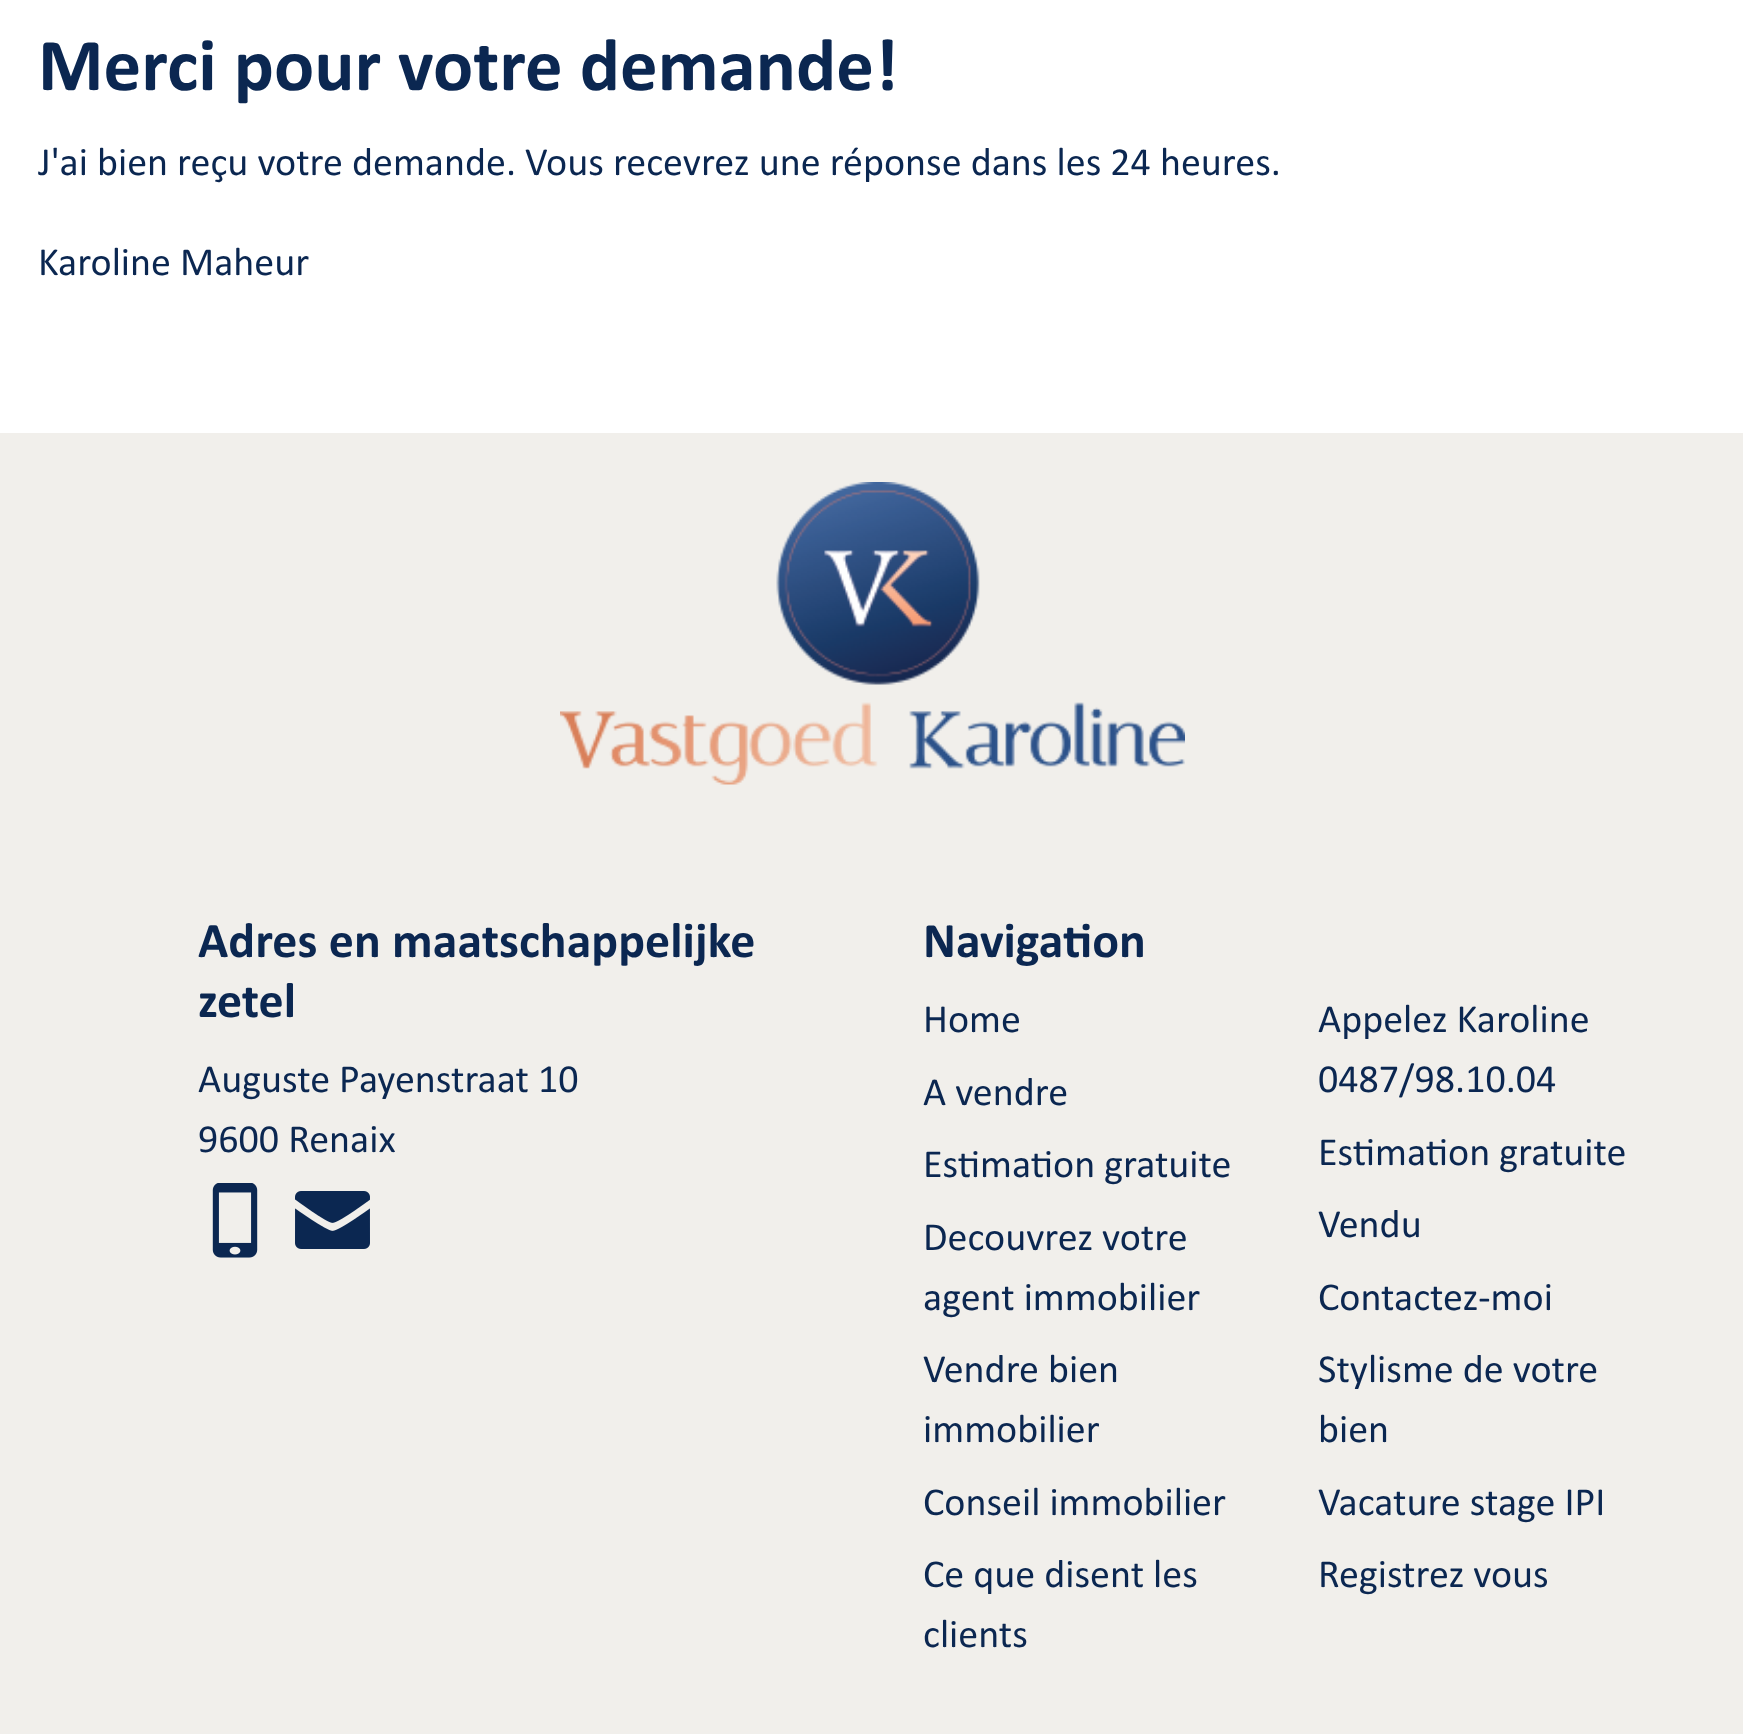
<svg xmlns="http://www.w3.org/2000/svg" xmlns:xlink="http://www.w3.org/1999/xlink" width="1743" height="1734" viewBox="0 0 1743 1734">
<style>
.cls-1{font:bold 75px Calibri;fill:#0b2751}
.cls-2{font:40px Calibri;fill:#0b2751}
.cls-3{font:bold 50px Calibri;fill:#0b2751}
</style>
<rect width="100%" height="100%" fill="#ffffff"/>
<rect fill="#f1efeb" x="0" y="433" width="1743" height="1301"/>
<image xlink:href="image0.png" x="560" y="482" width="625" height="303"/>
<image xlink:href="image1.png" x="212" y="1183" width="46" height="75"/>
<image xlink:href="image2.png" x="295" y="1191" width="75" height="58"/>
<text class="cls-1" x="38" y="90">Merci pour votre demande!</text>
<text class="cls-2" x="38" y="175">J'ai bien reçu votre demande. Vous recevrez une réponse dans les 24 heures.</text>
<text class="cls-2" x="38" y="275">Karoline Maheur</text>
<text class="cls-3"><tspan x="198" y="957">Adres en maatschappelijke</tspan><tspan x="198" y="1017">zetel</tspan></text>
<text class="cls-2"><tspan x="198" y="1092">Auguste Payenstraat 10</tspan><tspan x="198" y="1152">9600 Renaix</tspan></text>
<text class="cls-3" x="923" y="957">Navigation</text>
<text class="cls-2" x="923" y="1032">Home</text>
<text class="cls-2"><tspan x="1318" y="1032">Appelez Karoline</tspan><tspan x="1318" y="1092">0487/98.10.04</tspan></text>
<text class="cls-2"><tspan x="923" y="1105">A vendre</tspan><tspan x="923" y="1177">Estimation gratuite</tspan></text>
<text class="cls-2" x="1318" y="1165">Estimation gratuite</text>
<text class="cls-2"><tspan x="923" y="1250">Decouvrez votre</tspan><tspan x="923" y="1310">agent immobilier</tspan></text>
<text class="cls-2"><tspan x="1318" y="1237">Vendu</tspan><tspan x="1318" y="1310">Contactez-moi</tspan></text>
<text class="cls-2"><tspan x="923" y="1382">Vendre bien</tspan><tspan x="923" y="1442">immobilier</tspan></text>
<text class="cls-2"><tspan x="1318" y="1382">Stylisme de votre</tspan><tspan x="1318" y="1442">bien</tspan></text>
<text class="cls-2" x="923" y="1515">Conseil immobilier</text>
<text class="cls-2" x="1318" y="1515">Vacature stage IPI</text>
<text class="cls-2"><tspan x="923" y="1587">Ce que disent les</tspan><tspan x="923" y="1647">clients</tspan></text>
<text class="cls-2" x="1318" y="1587">Registrez vous</text>
</svg>
